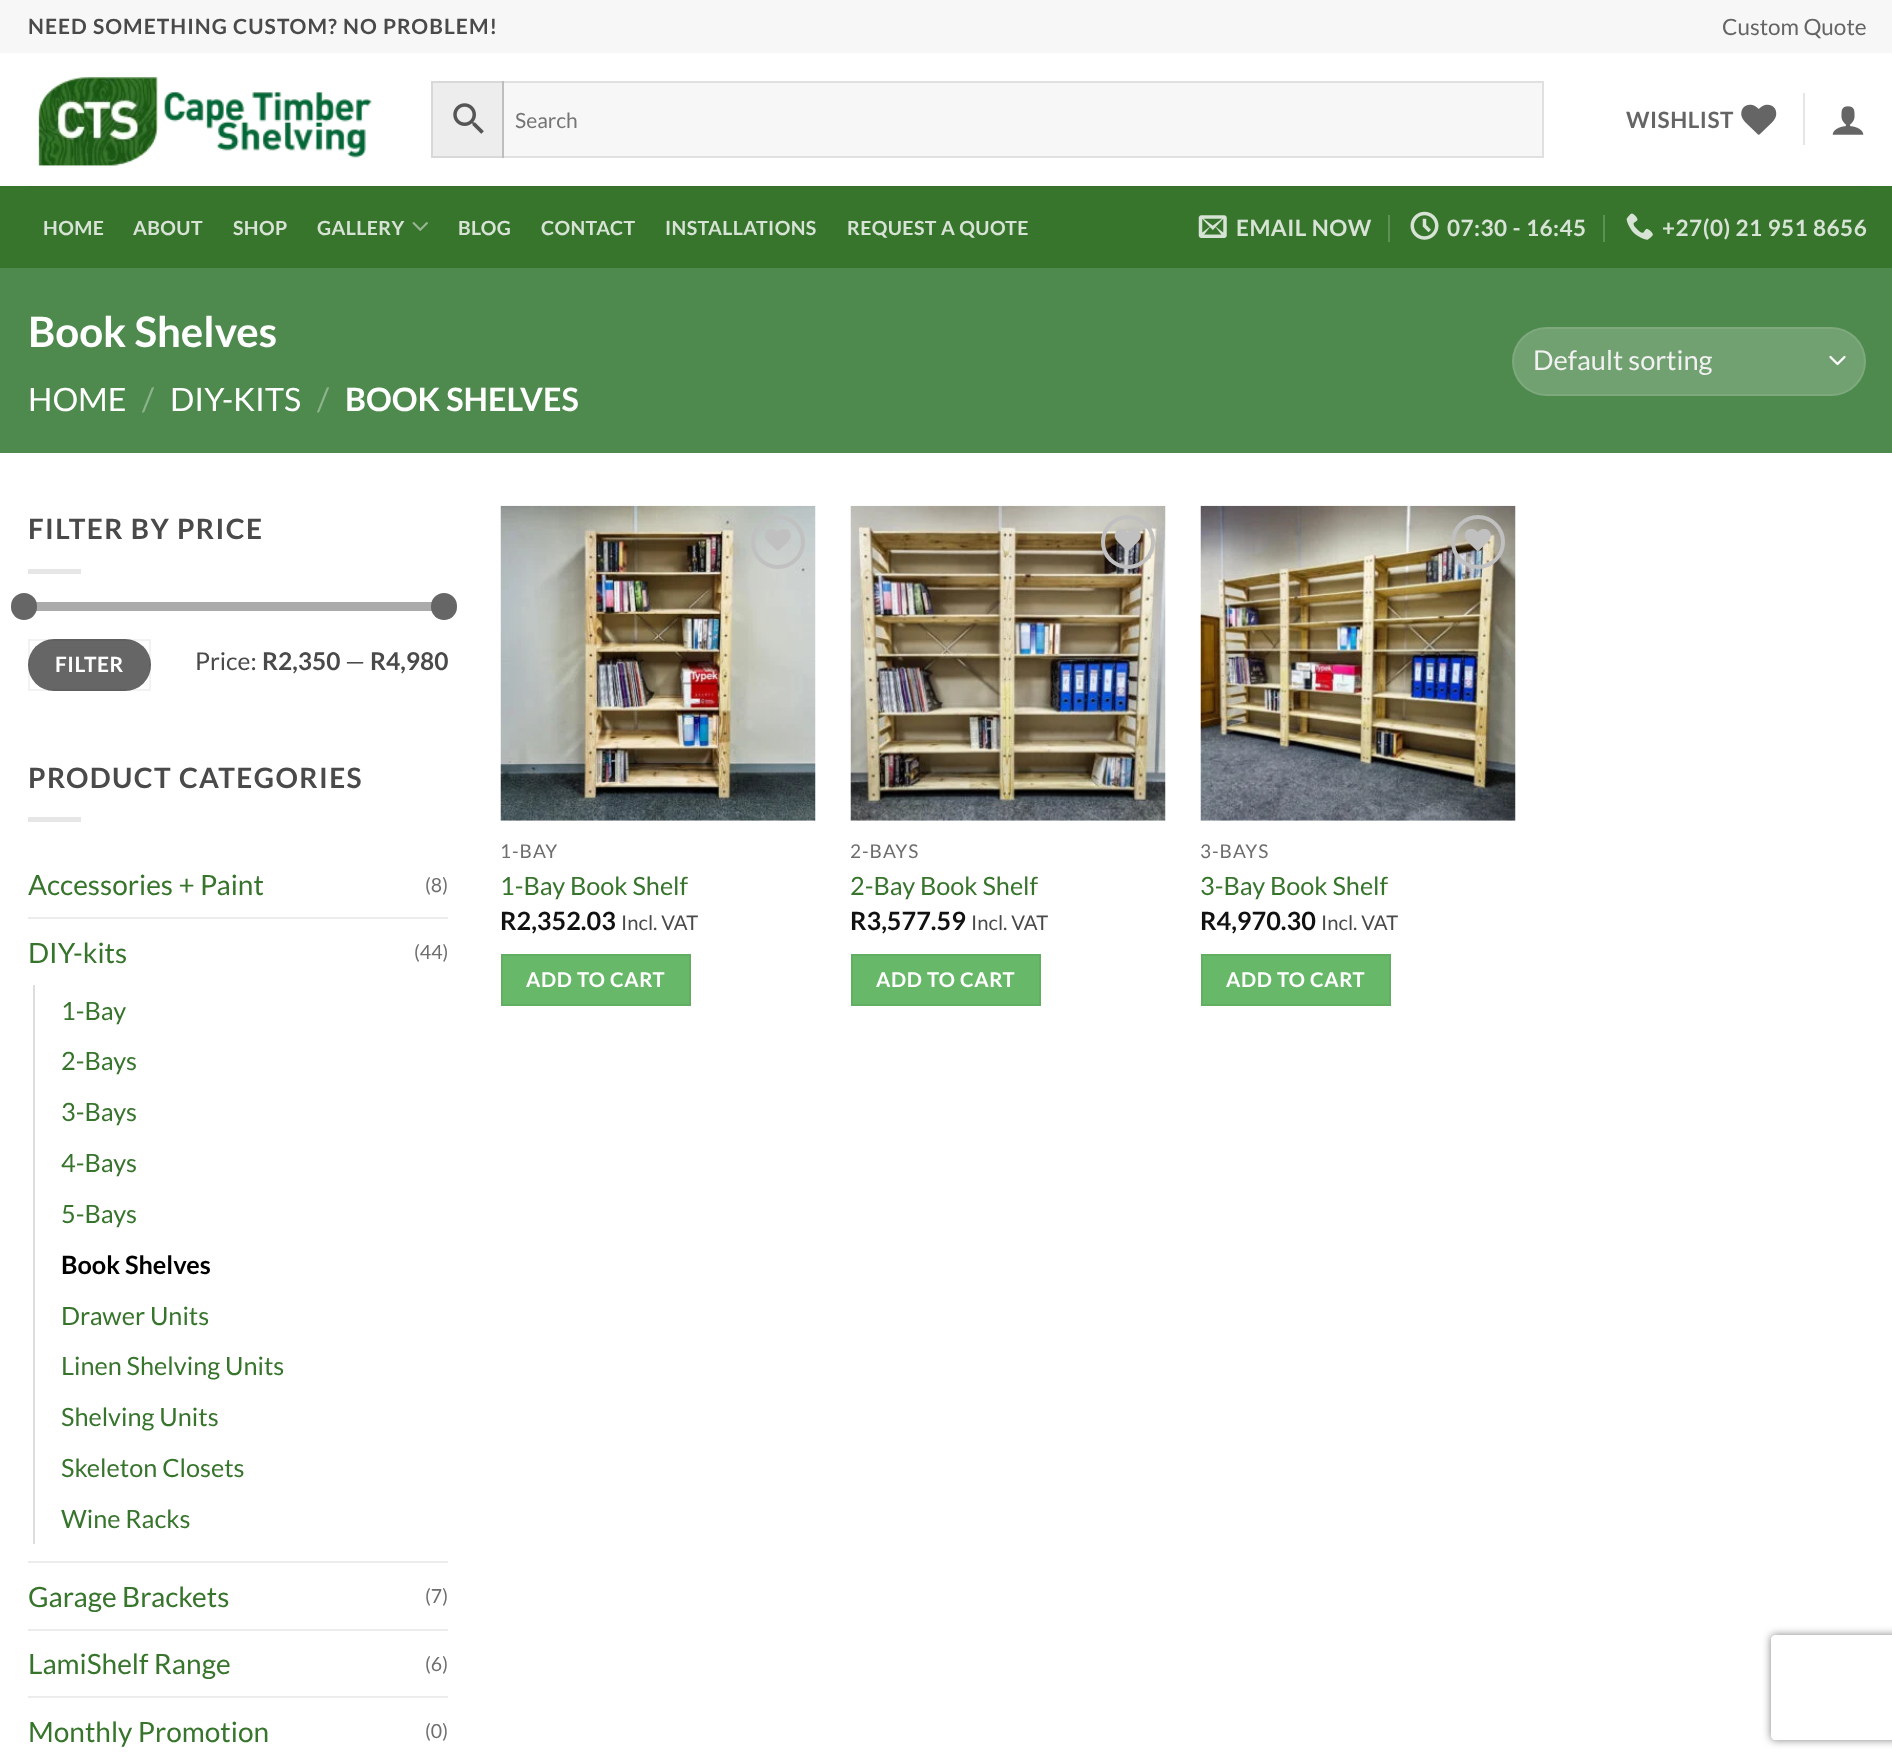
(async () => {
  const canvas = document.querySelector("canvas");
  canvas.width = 1892;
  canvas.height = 1763;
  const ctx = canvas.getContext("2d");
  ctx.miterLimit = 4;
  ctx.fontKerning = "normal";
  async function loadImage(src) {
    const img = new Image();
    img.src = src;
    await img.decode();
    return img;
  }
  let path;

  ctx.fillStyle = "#ffffff";
  ctx.fillRect(0, 0, 1892, 1763);
  ctx.fillStyle = "#f7f7f7";
  ctx.fillRect(0, 0, 1892, 53);
  ctx.drawImage(await loadImage("img/1.png"), 38, 77, 334, 89);
  ctx.fillStyle = "#ededed";
  ctx.beginPath();
  ctx.rect(432, 82, 71, 75);
  ctx.fill();
  ctx.strokeStyle = "#d8d8d8";
  ctx.lineWidth = 2;
  ctx.stroke();
  ctx.drawImage(await loadImage("img/2.png"), 453, 103, 31, 31);
  ctx.fillStyle = "rgba(0, 0, 0, 0.03)";
  ctx.fillRect(502, 81, 1042, 77);
  ctx.strokeStyle = "rgba(0, 0, 0, 0.09)";
  ctx.strokeRect(503, 82, 1040, 75);
  ctx.drawImage(await loadImage("img/3.png"), 1741, 104, 36, 31);
  ctx.fillStyle = "#e6e6e6";
  ctx.fillRect(1803, 93, 2, 52);
  ctx.drawImage(await loadImage("img/4.png"), 1832, 106, 32, 29);
  ctx.fillStyle = "#37742c";
  ctx.fillRect(0, 186, 1892, 82);
  ctx.fillStyle = "#39702f";
  ctx.fillRect(28, 186, 1838, 2);
  ctx.drawImage(await loadImage("img/5.png"), 412, 222, 16, 9);
  ctx.drawImage(await loadImage("img/6.png"), 1198, 215, 29, 23);
  ctx.fillStyle = "#5f9056";
  ctx.fillRect(1388, 215, 2, 27);
  ctx.drawImage(await loadImage("img/7.png"), 1410, 211, 29, 29);
  ctx.fillRect(1603, 215, 2, 27);
  ctx.drawImage(await loadImage("img/8.png"), 1626, 213, 27, 27);
  ctx.fillStyle = "#4e8a4e";
  ctx.fillRect(0, 268, 1892, 185);
  ctx.fillStyle = "#71a171";
  ctx.beginPath();
  ctx.roundRect(1512, 327, 354, 69, 34.5);
  ctx.fill();
  path = new Path2D("M1830.5 357L1837.5 364L1844.5 357");
  ctx.strokeStyle = "#ffffff";
  ctx.lineWidth = 2.3;
  ctx.lineCap = "round";
  ctx.lineJoin = "round";
  ctx.stroke(path);
  ctx.beginPath();
  ctx.roundRect(1513, 328, 352, 67, 33.5);
  ctx.strokeStyle = "rgba(255, 255, 255, 0.09)";
  ctx.lineWidth = 2;
  ctx.lineJoin = "miter";
  ctx.stroke();
  for (const [x, y, w, h, color] of [
    [28, 569, 53, 5, "#e6e6e6"],
    [36, 602, 396, 9, "#f1f1f1"],
    [36, 602, 396, 9, "rgba(102, 102, 102, 0.5)"],
  ]) {
    ctx.fillStyle = color;
    ctx.fillRect(x, y, w, h);
  }
  ctx.fillStyle = "#666666";
  ctx.beginPath();
  ctx.roundRect(11, 593, 26, 27, 13);
  ctx.fill();
  ctx.beginPath();
  ctx.roundRect(431, 593, 26, 27, 13);
  ctx.fill();
  ctx.beginPath();
  ctx.roundRect(28, 639, 123, 52, 26);
  ctx.fill();
  ctx.strokeStyle = "rgba(0, 0, 0, 0.05)";
  ctx.strokeRect(29, 640, 121, 50);
  for (const [x, y, w, h, color] of [
    [28, 817, 53, 5, "#e6e6e6"],
    [28, 917, 420, 2, "#ececec"],
    [33, 985, 2, 559, "#dddddd"],
    [28, 1561, 420, 2, "#ececec"],
    [28, 1629, 420, 2, "#ececec"],
    [28, 1696, 420, 2, "#ececec"],
  ]) {
    ctx.fillStyle = color;
    ctx.fillRect(x, y, w, h);
  }
  ctx.drawImage(await loadImage("img/9.png"), 500, 505, 316, 316);
  ctx.beginPath();
  ctx.arc(778, 542, 25, 0, Math.PI * 2);
  ctx.strokeStyle = "#c0c0c0";
  ctx.lineWidth = 4;
  ctx.stroke();
  ctx.drawImage(await loadImage("img/10.png"), 765, 529, 26, 22);
  ctx.fillStyle = "#67b868";
  ctx.beginPath();
  ctx.rect(502, 955, 188, 50);
  ctx.fill();
  ctx.strokeStyle = "#62af63";
  ctx.lineWidth = 2;
  ctx.stroke();
  ctx.drawImage(await loadImage("img/11.png"), 850, 505, 316, 316);
  ctx.beginPath();
  ctx.arc(1128, 542, 25, 0, Math.PI * 2);
  ctx.strokeStyle = "#c0c0c0";
  ctx.lineWidth = 4;
  ctx.stroke();
  ctx.drawImage(await loadImage("img/12.png"), 1114, 529, 27, 22);
  ctx.beginPath();
  ctx.rect(852, 955, 188, 50);
  ctx.fill();
  ctx.strokeStyle = "#62af63";
  ctx.lineWidth = 2;
  ctx.stroke();
  ctx.drawImage(await loadImage("img/13.png"), 1200, 505, 316, 316);
  ctx.beginPath();
  ctx.arc(1478, 542, 25, 0, Math.PI * 2);
  ctx.strokeStyle = "#c0c0c0";
  ctx.lineWidth = 4;
  ctx.stroke();
  ctx.drawImage(await loadImage("img/14.png"), 1464, 529, 27, 23);
  ctx.beginPath();
  ctx.rect(1202, 955, 188, 50);
  ctx.fill();
  ctx.strokeStyle = "#62af63";
  ctx.lineWidth = 2;
  ctx.stroke();
  ctx.save();
  path = new Path2D("M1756 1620H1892V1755H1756ZM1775 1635H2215C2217 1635 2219 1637 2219 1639V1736C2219 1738 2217 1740 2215 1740H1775C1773 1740 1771 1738 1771 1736V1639C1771 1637 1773 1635 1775 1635Z");
  ctx.clip(path, "evenodd");
  ctx.fillStyle = "#808080";
  ctx.filter = "blur(4.5px)";
  ctx.beginPath();
  ctx.roundRect(1771, 1635, 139, 105, 4);
  ctx.fill();
  ctx.filter = "none";
  ctx.restore();
  ctx.letterSpacing = "1.05px";
  ctx.font = "bold 21px Lato";
  ctx.fillStyle = "#4a4a4a";
  ctx.fillText("NEED SOMETHING CUSTOM? NO PROBLEM!", 28, 34);
  ctx.letterSpacing = "0px";
  ctx.font = "22.5px Lato";
  ctx.fillStyle = "#656565";
  ctx.fillText("Custom Quote", 1722, 35);
  ctx.font = "21px Lato";
  ctx.fillStyle = "#757575";
  ctx.fillText("Search", 515, 128);
  ctx.letterSpacing = "0.5px";
  ctx.font = "bold 22.5px Lato";
  ctx.fillStyle = "#656565";
  ctx.fillText("WISHLIST", 1626, 128);
  ctx.letterSpacing = "0.4px";
  ctx.font = "bold 19.5px Lato";
  ctx.fillStyle = "#d7e3d5";
  for (const [text, x, y] of [
    ["HOME", 43, 235],
    ["ABOUT", 133, 235],
    ["SHOP", 233, 235],
    ["GALLERY", 317, 235],
    ["BLOG", 458, 235],
    ["CONTACT", 541, 235],
    ["INSTALLATIONS", 665, 235],
    ["REQUEST A QUOTE", 847, 235],
  ]) {
    ctx.fillText(text, x, y);
  }
  ctx.letterSpacing = "0.5px";
  ctx.font = "bold 22.5px Lato";
  for (const [text, x, y] of [
    ["EMAIL NOW", 1236, 236],
    ["07:30 - 16:45", 1447, 236],
    ["+27(0) 21 951 8656", 1662, 236],
  ]) {
    ctx.fillText(text, x, y);
  }
  ctx.letterSpacing = "0px";
  ctx.font = "bold 42px Lato";
  ctx.fillStyle = "#ffffff";
  ctx.fillText("Book Shelves", 28, 347);
  ctx.font = "32.25px Lato";
  ctx.fillText("HOME", 28, 411);
  ctx.fillStyle = "#8cb38c";
  ctx.fillText("/", 142, 411);
  ctx.fillStyle = "#ffffff";
  ctx.fillText("DIY-KITS", 170, 411);
  ctx.fillStyle = "#8cb38c";
  ctx.fillText("/", 317, 411);
  ctx.font = "bold 32.25px Lato";
  ctx.fillStyle = "#ffffff";
  ctx.fillText("BOOK SHELVES", 345, 411);
  ctx.font = "27.25px Lato";
  ctx.fillStyle = "#f1f1f1";
  ctx.fillText("Default sorting", 1533, 370);
  ctx.letterSpacing = "1.4px";
  ctx.font = "bold 28px Lato";
  ctx.fillStyle = "#4a4a4a";
  ctx.fillText("FILTER BY PRICE", 28, 539);
  ctx.letterSpacing = "0.5px";
  ctx.font = "bold 21px Lato";
  ctx.fillStyle = "#ffffff";
  ctx.fillText("FILTER", 55, 672);
  ctx.letterSpacing = "0px";
  ctx.font = "24.5px Lato";
  ctx.fillStyle = "#4a4a4a";
  ctx.fillText("Price:", 195, 670);
  ctx.font = "bold 24.5px Lato";
  ctx.fillText("R2,350", 262, 670);
  ctx.font = "24.5px Lato";
  ctx.fillText("—", 345, 670);
  ctx.font = "bold 24.5px Lato";
  ctx.fillText("R4,980", 370, 670);
  ctx.letterSpacing = "1.4px";
  ctx.font = "bold 28px Lato";
  ctx.fillText("PRODUCT CATEGORIES", 28, 788);
  ctx.letterSpacing = "0px";
  ctx.font = "28px Lato";
  ctx.fillStyle = "#37742c";
  ctx.fillText("Accessories + Paint", 28, 895);
  ctx.font = "19.5px Lato";
  ctx.fillStyle = "#6e6e6e";
  ctx.fillText("(8)", 425, 892);
  ctx.font = "28px Lato";
  ctx.fillStyle = "#37742c";
  ctx.fillText("DIY-kits", 28, 963);
  ctx.font = "19.5px Lato";
  ctx.fillStyle = "#6e6e6e";
  ctx.fillText("(44)", 414, 959);
  ctx.font = "25.25px Lato";
  ctx.fillStyle = "#37742c";
  for (const [text, x, y] of [
    ["1-Bay", 61, 1020],
    ["2-Bays", 61, 1070],
    ["3-Bays", 61, 1121],
    ["4-Bays", 61, 1172],
    ["5-Bays", 61, 1223],
  ]) {
    ctx.fillText(text, x, y);
  }
  ctx.font = "bold 25.25px Lato";
  ctx.fillStyle = "#000000";
  ctx.fillText("Book Shelves", 61, 1274);
  ctx.font = "25.25px Lato";
  ctx.fillStyle = "#37742c";
  for (const [text, x, y] of [
    ["Drawer Units", 61, 1325],
    ["Linen Shelving Units", 61, 1375],
    ["Shelving Units", 61, 1426],
    ["Skeleton Closets", 61, 1477],
    ["Wine Racks", 61, 1528],
  ]) {
    ctx.fillText(text, x, y);
  }
  ctx.font = "28px Lato";
  ctx.fillText("Garage Brackets", 28, 1607);
  ctx.font = "19.5px Lato";
  ctx.fillStyle = "#6e6e6e";
  ctx.fillText("(7)", 425, 1603);
  ctx.font = "28px Lato";
  ctx.fillStyle = "#37742c";
  ctx.fillText("LamiShelf Range", 28, 1674);
  ctx.font = "19.5px Lato";
  ctx.fillStyle = "#6e6e6e";
  ctx.fillText("(6)", 425, 1671);
  ctx.font = "28px Lato";
  ctx.fillStyle = "#37742c";
  ctx.fillText("Monthly Promotion", 28, 1742);
  ctx.font = "19.5px Lato";
  ctx.fillStyle = "#6e6e6e";
  ctx.fillText("(0)", 425, 1738);
  ctx.letterSpacing = "1px";
  ctx.font = "19px Lato";
  ctx.fillText("1-BAY", 500, 858);
  ctx.letterSpacing = "0px";
  ctx.font = "25.25px Lato";
  ctx.fillStyle = "#37742c";
  ctx.fillText("1-Bay Book Shelf", 500, 895);
  ctx.font = "bold 25.25px Lato";
  ctx.fillStyle = "#111111";
  ctx.fillText("R2,352.03", 500, 930);
  ctx.font = "20.25px Lato";
  ctx.fillStyle = "#4a4a4a";
  ctx.fillText("Incl. VAT", 621, 930);
  ctx.letterSpacing = "0.6px";
  ctx.font = "bold 20.25px Lato";
  ctx.fillStyle = "#ffffff";
  ctx.fillText("ADD TO CART", 526, 987);
  ctx.letterSpacing = "1px";
  ctx.font = "19px Lato";
  ctx.fillStyle = "#6e6e6e";
  ctx.fillText("2-BAYS", 850, 858);
  ctx.letterSpacing = "0px";
  ctx.font = "25.25px Lato";
  ctx.fillStyle = "#37742c";
  ctx.fillText("2-Bay Book Shelf", 850, 895);
  ctx.font = "bold 25.25px Lato";
  ctx.fillStyle = "#111111";
  ctx.fillText("R3,577.59", 850, 930);
  ctx.font = "20.25px Lato";
  ctx.fillStyle = "#4a4a4a";
  ctx.fillText("Incl. VAT", 971, 930);
  ctx.letterSpacing = "0.6px";
  ctx.font = "bold 20.25px Lato";
  ctx.fillStyle = "#ffffff";
  ctx.fillText("ADD TO CART", 876, 987);
  ctx.letterSpacing = "1px";
  ctx.font = "19px Lato";
  ctx.fillStyle = "#6e6e6e";
  ctx.fillText("3-BAYS", 1200, 858);
  ctx.letterSpacing = "0px";
  ctx.font = "25.25px Lato";
  ctx.fillStyle = "#37742c";
  ctx.fillText("3-Bay Book Shelf", 1200, 895);
  ctx.font = "bold 25.25px Lato";
  ctx.fillStyle = "#111111";
  ctx.fillText("R4,970.30", 1200, 930);
  ctx.font = "20.25px Lato";
  ctx.fillStyle = "#4a4a4a";
  ctx.fillText("Incl. VAT", 1321, 930);
  ctx.letterSpacing = "0.6px";
  ctx.font = "bold 20.25px Lato";
  ctx.fillStyle = "#ffffff";
  ctx.fillText("ADD TO CART", 1226, 987);
})();
